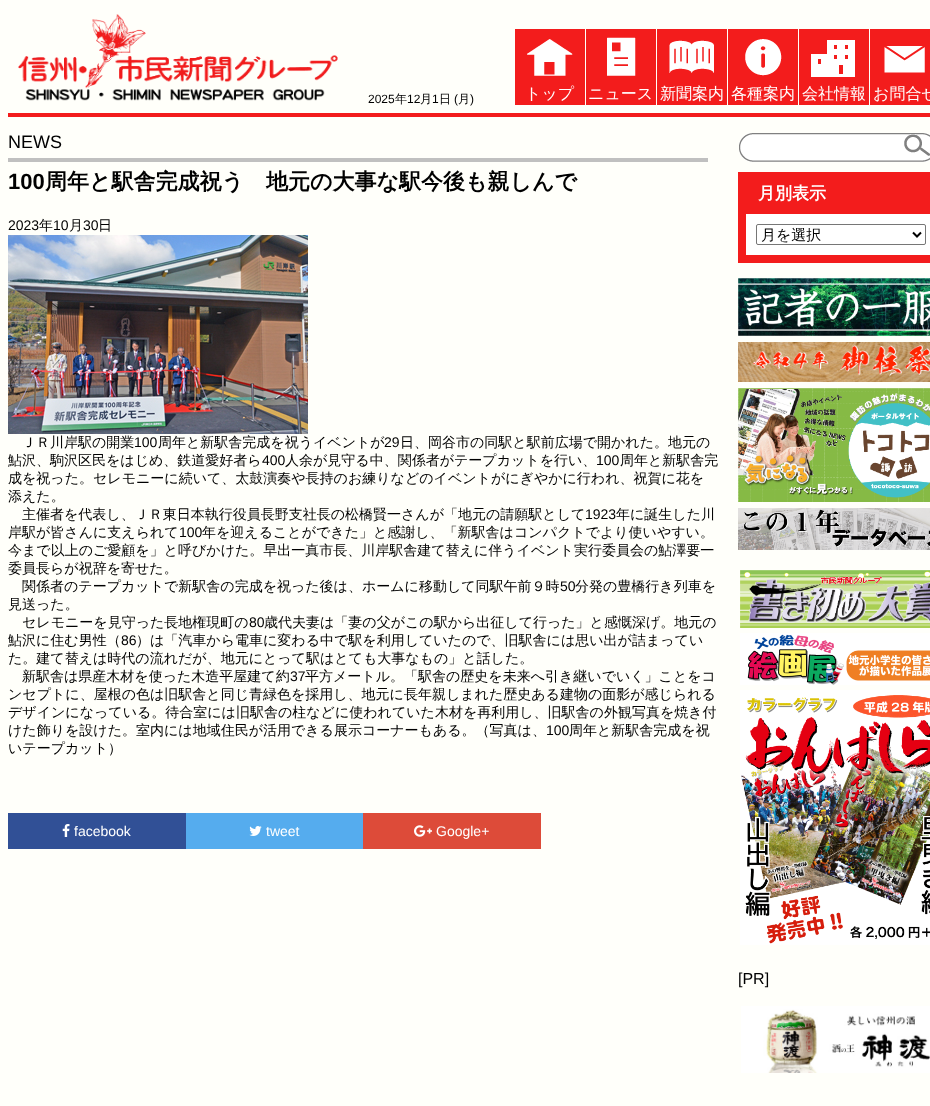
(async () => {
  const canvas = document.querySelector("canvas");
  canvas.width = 930;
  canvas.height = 1106;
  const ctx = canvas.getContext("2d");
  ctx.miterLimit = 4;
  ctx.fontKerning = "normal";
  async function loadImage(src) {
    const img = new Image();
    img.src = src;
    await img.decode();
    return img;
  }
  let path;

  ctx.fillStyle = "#fffffa";
  ctx.fillRect(0, 0, 930, 1106);
  ctx.fillStyle = "#f31c1c";
  ctx.fillRect(8, 113, 922, 4);
  ctx.drawImage(await loadImage("img/1.png"), 18, 14, 320, 87);
  ctx.fillRect(515, 29, 70, 76);
  ctx.drawImage(await loadImage("img/2.png"), 527, 39, 46, 37);
  ctx.fillRect(586, 29, 70, 76);
  ctx.drawImage(await loadImage("img/3.png"), 607, 37, 29, 39);
  ctx.fillRect(657, 29, 70, 76);
  ctx.drawImage(await loadImage("img/4.png"), 669, 40, 45, 33);
  ctx.fillRect(728, 29, 70, 76);
  ctx.drawImage(await loadImage("img/5.png"), 745, 39, 37, 37);
  ctx.fillRect(799, 29, 70, 76);
  ctx.drawImage(await loadImage("img/6.png"), 811, 40, 44, 37);
  ctx.fillRect(870, 29, 60, 76);
  ctx.drawImage(await loadImage("img/7.png"), 884, 46, 41, 27);
  ctx.fillStyle = "#c0c0c0";
  ctx.fillRect(8, 158, 700, 4);
  ctx.drawImage(await loadImage("img/8.png"), 8, 235, 300, 199);
  ctx.fillStyle = "#315096";
  ctx.fillRect(8, 813, 178, 36);
  ctx.drawImage(await loadImage("img/9.png"), 62, 824, 8, 13);
  ctx.fillStyle = "#55acee";
  ctx.fillRect(186, 813, 177, 36);
  ctx.drawImage(await loadImage("img/10.png"), 249, 826, 13, 10);
  ctx.fillStyle = "#dd4b39";
  ctx.fillRect(363, 813, 178, 36);
  ctx.drawImage(await loadImage("img/11.png"), 414, 825, 18, 12);
  ctx.drawImage(await loadImage("img/12.png"), 739, 133, 191, 29);
  ctx.drawImage(await loadImage("img/13.png"), 904, 134, 26, 22);
  ctx.fillStyle = "#f31c1c";
  ctx.fillRect(738, 172, 192, 91);
  ctx.fillStyle = "#ffffff";
  ctx.fillRect(746, 214, 184, 41);
  ctx.beginPath();
  ctx.roundRect(756.5, 224.5, 169, 20, 1.5);
  ctx.strokeStyle = "#767676";
  ctx.stroke();
  path = new Path2D("M913 232.5L917 236.5L921 232.5");
  ctx.strokeStyle = "#000000";
  ctx.lineWidth = 2;
  ctx.stroke(path);
  ctx.drawImage(await loadImage("img/14.png"), 738, 278, 192, 58);
  ctx.drawImage(await loadImage("img/15.png"), 738, 342, 192, 40);
  ctx.drawImage(await loadImage("img/16.png"), 738, 388, 192, 114);
  ctx.drawImage(await loadImage("img/17.png"), 738, 508, 192, 42);
  ctx.drawImage(await loadImage("img/18.png"), 740, 570, 190, 58);
  ctx.drawImage(await loadImage("img/19.png"), 740, 633, 190, 52);
  ctx.drawImage(await loadImage("img/20.png"), 740, 690, 190, 255);
  ctx.drawImage(await loadImage("img/21.png"), 741, 1006, 189, 67);
  ctx.font = "12px Liberation Sans";
  ctx.fillStyle = "#000000";
  ctx.fillText("2025", 368, 103);
  ctx.font = "500 12px WenQuanYi Zen Hei";
  ctx.fillText("年", 395, 103);
  ctx.font = "12px Liberation Sans";
  ctx.fillText("12", 407, 103);
  ctx.font = "500 12px WenQuanYi Zen Hei";
  ctx.fillText("月", 420, 103);
  ctx.font = "12px Liberation Sans";
  ctx.fillText("1", 432, 103);
  ctx.font = "500 12px WenQuanYi Zen Hei";
  ctx.fillText("日", 439, 103);
  ctx.font = "12px Liberation Sans";
  ctx.fillText("(", 454, 103);
  ctx.font = "500 12px WenQuanYi Zen Hei";
  ctx.fillText("月", 458, 103);
  ctx.font = "12px Liberation Sans";
  ctx.fillText(")", 470, 103);
  ctx.font = "500 16px WenQuanYi Zen Hei";
  ctx.fillStyle = "#ffffff";
  for (const [text, x, y] of [
    ["トップ", 525, 99],
    ["ニュース", 588, 99],
    ["新聞案内", 660, 99],
    ["各種案内", 731, 99],
    ["会社情報", 802, 99],
    ["お問合せ", 873, 99],
  ]) {
    ctx.fillText(text, x, y);
  }
  ctx.font = "18px Liberation Sans";
  ctx.fillStyle = "#000000";
  ctx.fillText("NEWS", 8, 148);
  ctx.font = "bold 22px Liberation Sans";
  ctx.fillText("100", 8, 189);
  ctx.font = "bold 22px WenQuanYi Zen Hei";
  ctx.fillText("周年と駅舎完成祝う　地元の大事な駅今後も親しんで", 45, 189);
  ctx.font = "14px Liberation Sans";
  ctx.fillText("2023", 8, 230);
  ctx.font = "500 14px WenQuanYi Zen Hei";
  ctx.fillText("年", 39, 230);
  ctx.font = "14px Liberation Sans";
  ctx.fillText("10", 53, 230);
  ctx.font = "500 14px WenQuanYi Zen Hei";
  ctx.fillText("月", 69, 230);
  ctx.font = "14px Liberation Sans";
  ctx.fillText("30", 83, 230);
  ctx.font = "500 14px WenQuanYi Zen Hei";
  ctx.fillText("日", 98, 230);
  ctx.fillText("ＪＲ川岸駅の開業", 22, 447);
  ctx.font = "14px Liberation Sans";
  ctx.fillText("100", 134, 447);
  ctx.font = "500 14px WenQuanYi Zen Hei";
  ctx.fillText("周年と新駅舎完成を祝うイベントが", 158, 447);
  ctx.font = "14px Liberation Sans";
  ctx.fillText("29", 384, 447);
  ctx.font = "500 14px WenQuanYi Zen Hei";
  ctx.fillText("日、岡谷市の同駅と駅前広場で開かれた。地元の", 400, 447);
  ctx.fillText("鮎沢、駒沢区民をはじめ、鉄道愛好者ら", 8, 465);
  ctx.font = "14px Liberation Sans";
  ctx.fillText("400", 262, 465);
  ctx.font = "500 14px WenQuanYi Zen Hei";
  ctx.fillText("人余が見守る中、関係者がテープカットを行い、", 285, 465);
  ctx.font = "14px Liberation Sans";
  ctx.fillText("100", 596, 465);
  ctx.font = "500 14px WenQuanYi Zen Hei";
  for (const [text, x, y] of [
    ["周年と新駅舎完", 620, 465],
    ["成を祝った。セレモニーに続いて、太鼓演奏や長持のお練りなどのイベントがにぎやかに行われ、祝賀に花を", 8, 483],
    ["添えた。", 8, 501],
    ["主催者を代表し、ＪＲ東日本執行役員長野支社長の松橋賢一さんが「地元の請願駅として", 22, 519],
  ]) {
    ctx.fillText(text, x, y);
  }
  ctx.font = "14px Liberation Sans";
  ctx.fillText("1923", 585, 519);
  ctx.font = "500 14px WenQuanYi Zen Hei";
  ctx.fillText("年に誕生した川", 616, 519);
  ctx.fillText("岸駅が皆さんに支えられて", 8, 537);
  ctx.font = "14px Liberation Sans";
  ctx.fillText("100", 179, 537);
  ctx.font = "500 14px WenQuanYi Zen Hei";
  for (const [text, x, y] of [
    ["年を迎えることができた」と感謝し、「新駅舎はコンパクトでより使いやすい。", 202, 537],
    ["今まで以上のご愛顧を」と呼びかけた。早出一真市長、川岸駅舎建て替えに伴うイベント実行委員会の鮎澤要一", 8, 555],
    ["委員長らが祝辞を寄せた。", 8, 573],
    ["関係者のテープカットで新駅舎の完成を祝った後は、ホームに移動して同駅午前９時", 22, 591],
  ]) {
    ctx.fillText(text, x, y);
  }
  ctx.font = "14px Liberation Sans";
  ctx.fillText("50", 560, 591);
  ctx.font = "500 14px WenQuanYi Zen Hei";
  for (const [text, x, y] of [
    ["分発の豊橋行き列車を", 575, 591],
    ["見送った。", 8, 609],
    ["セレモニーを見守った長地権現町の", 22, 627],
  ]) {
    ctx.fillText(text, x, y);
  }
  ctx.font = "14px Liberation Sans";
  ctx.fillText("80", 249, 627);
  ctx.font = "500 14px WenQuanYi Zen Hei";
  ctx.fillText("歳代夫妻は「妻の父がこの駅から出征して行った」と感慨深げ。地元の", 264, 627);
  ctx.fillText("鮎沢に住む男性（", 8, 645);
  ctx.font = "14px Liberation Sans";
  ctx.fillText("86", 121, 645);
  ctx.font = "500 14px WenQuanYi Zen Hei";
  for (const [text, x, y] of [
    ["）は「汽車から電車に変わる中で駅を利用していたので、旧駅舎には思い出が詰まってい", 136, 645],
    ["た。建て替えは時代の流れだが、地元にとって駅はとても大事なもの」と話した。", 8, 663],
    ["新駅舎は県産木材を使った木造平屋建て約", 22, 681],
  ]) {
    ctx.fillText(text, x, y);
  }
  ctx.font = "14px Liberation Sans";
  ctx.fillText("37", 290, 681);
  ctx.font = "500 14px WenQuanYi Zen Hei";
  for (const [text, x, y] of [
    ["平方メートル。「駅舎の歴史を未来へ引き継いでいく」ことをコ", 305, 681],
    ["ンセプトに、屋根の色は旧駅舎と同じ青緑色を採用し、地元に長年親しまれた歴史ある建物の面影が感じられる", 8, 699],
    ["デザインになっている。待合室には旧駅舎の柱などに使われていた木材を再利用し、旧駅舎の外観写真を焼き付", 8, 717],
    ["けた飾りを設けた。室内には地域住民が活用できる展示コーナーもある。（写真は、", 8, 735],
  ]) {
    ctx.fillText(text, x, y);
  }
  ctx.font = "14px Liberation Sans";
  ctx.fillText("100", 546, 735);
  ctx.font = "500 14px WenQuanYi Zen Hei";
  ctx.fillText("周年と新駅舎完成を祝", 569, 735);
  ctx.fillText("いテープカット）", 8, 753);
  ctx.font = "14px Liberation Sans";
  ctx.fillStyle = "#ffffff";
  for (const [text, x, y] of [
    ["facebook", 74, 836],
    ["tweet", 266, 836],
    ["Google+", 436, 836],
  ]) {
    ctx.fillText(text, x, y);
  }
  ctx.font = "bold 17px WenQuanYi Zen Hei";
  ctx.fillText("月別表示", 758, 199);
  ctx.font = "500 15px WenQuanYi Zen Hei";
  ctx.fillStyle = "#000000";
  ctx.fillText("月を選択", 761, 240);
  ctx.font = "16px Liberation Sans";
  ctx.fillText("[PR]", 738, 984);
})();
